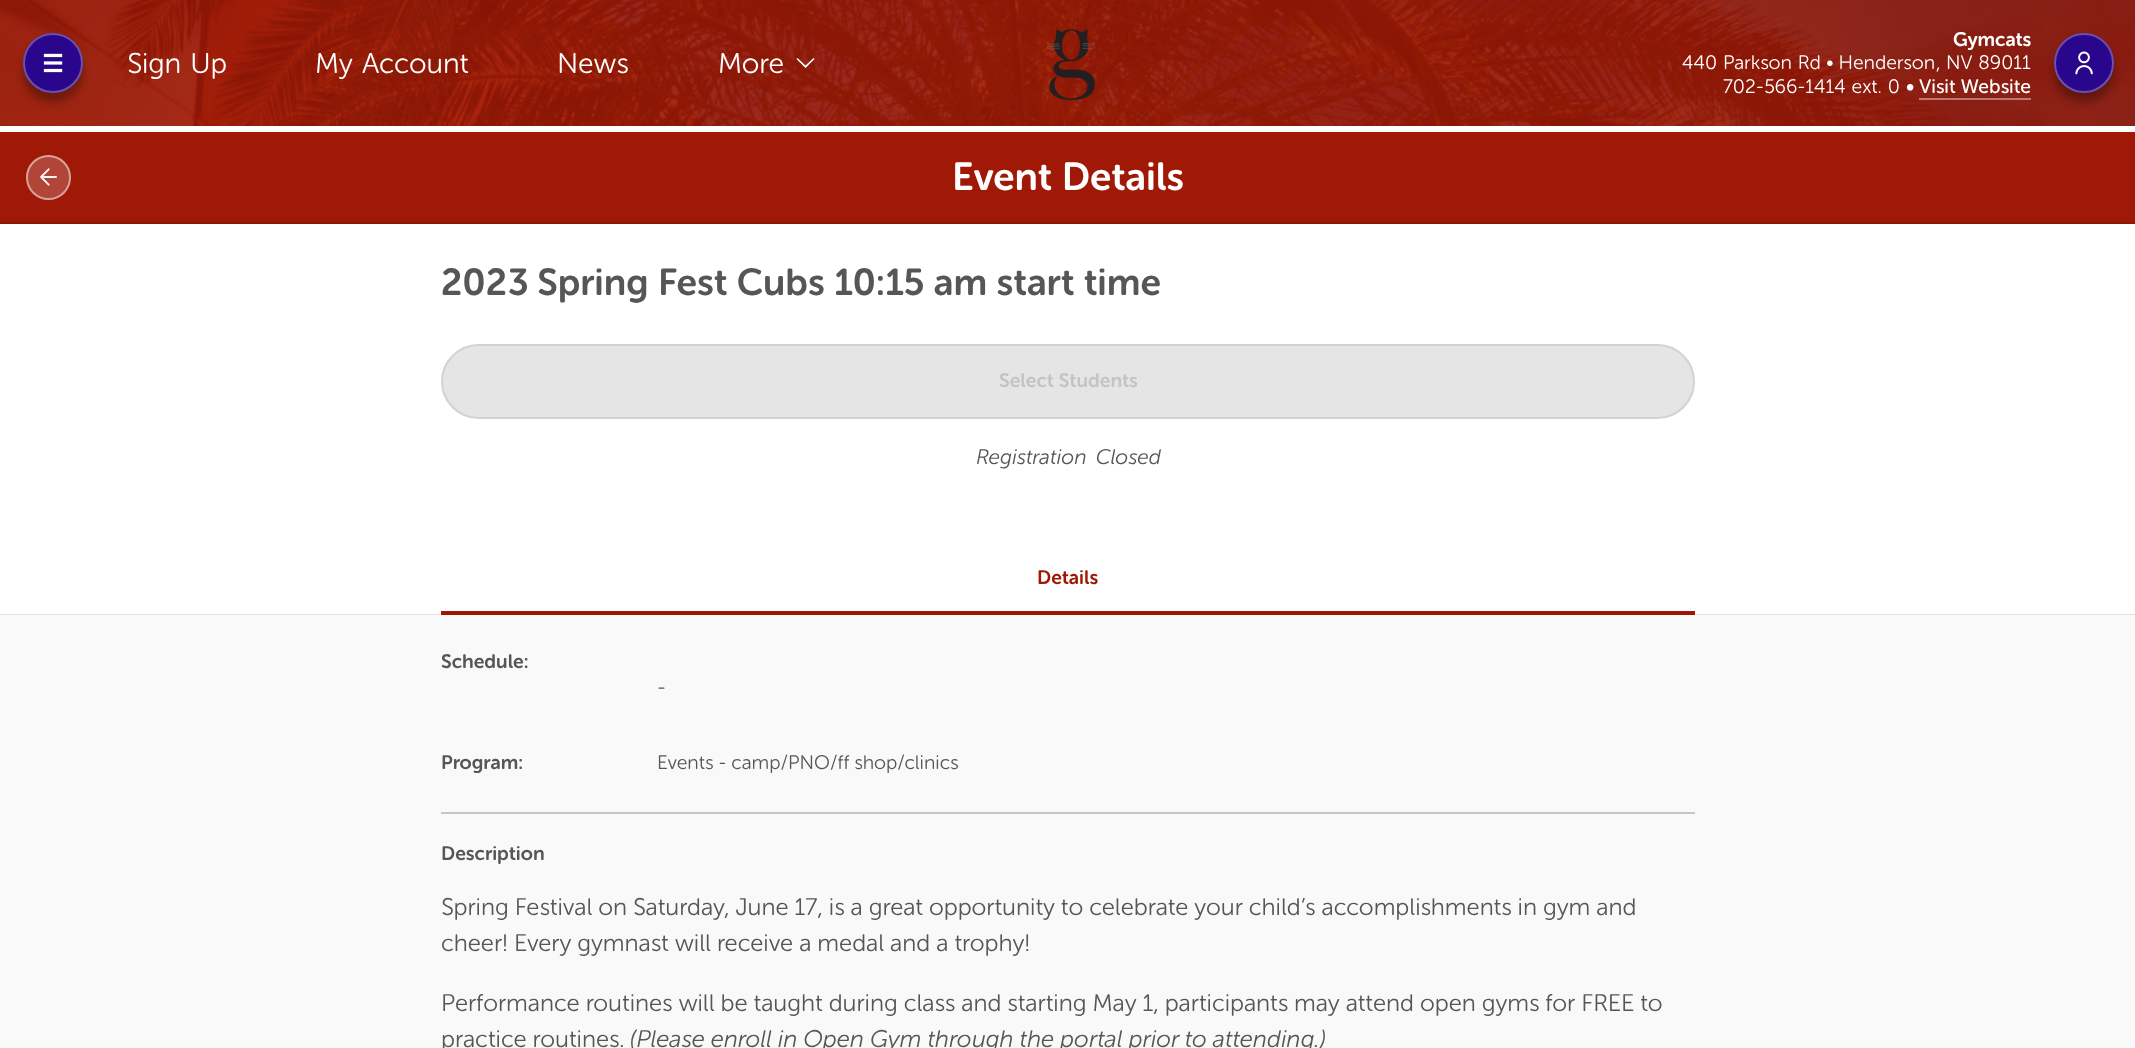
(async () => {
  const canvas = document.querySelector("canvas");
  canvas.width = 2135;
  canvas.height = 1048;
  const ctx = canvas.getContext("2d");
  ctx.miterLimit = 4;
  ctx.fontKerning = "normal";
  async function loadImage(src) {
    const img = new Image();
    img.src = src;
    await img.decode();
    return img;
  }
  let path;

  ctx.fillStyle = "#a01806";
  ctx.fillRect(0, 0, 2135, 1048);
  ctx.drawImage(await loadImage("img/1.png"), 0, 0, 2135, 126);
  ctx.fillStyle = "rgba(0, 0, 0, 0.3)";
  ctx.filter = "blur(4px)";
  ctx.beginPath();
  ctx.roundRect(23, 42, 60, 60, 30);
  ctx.fill();
  ctx.filter = "none";
  ctx.fillStyle = "#2a068d";
  ctx.beginPath();
  ctx.arc(53, 63, 30, 0, Math.PI * 2);
  ctx.fill();
  ctx.beginPath();
  ctx.arc(53, 63, 29, 0, Math.PI * 2);
  ctx.strokeStyle = "rgba(255, 255, 255, 0.3)";
  ctx.lineWidth = 2;
  ctx.stroke();
  ctx.drawImage(await loadImage("img/2.png"), 43, 53, 20, 20);
  ctx.fillStyle = "#ffffff";
  path = new Path2D("M805.5 68L814.5 59L813.5 58L805.5 65.5L797.5 58L796.5 59Z");
  ctx.fill(path);
  ctx.drawImage(await loadImage("img/3.png"), 1046, 28, 50, 73);
  ctx.fillStyle = "rgba(255, 255, 255, 0.4)";
  ctx.fillRect(1919, 98, 112, 2);
  ctx.fillStyle = "rgba(0, 0, 0, 0.3)";
  ctx.filter = "blur(4px)";
  ctx.beginPath();
  ctx.roundRect(2054, 42, 60, 60, 30);
  ctx.fill();
  ctx.filter = "none";
  ctx.fillStyle = "#2a068d";
  ctx.beginPath();
  ctx.arc(2084, 63, 30, 0, Math.PI * 2);
  ctx.fill();
  ctx.beginPath();
  ctx.arc(2084, 63, 29, 0, Math.PI * 2);
  ctx.stroke();
  ctx.drawImage(await loadImage("img/4.png"), 2075, 51, 18, 24);
  ctx.fillStyle = "#ffffff";
  ctx.fillRect(0, 126, 2135, 6);
  ctx.fillStyle = "#8e1505";
  ctx.fillRect(0, 222, 2135, 2);
  ctx.fillStyle = "#b14538";
  ctx.beginPath();
  ctx.arc(48.5, 177.5, 22.5, 0, Math.PI * 2);
  ctx.fill();
  ctx.drawImage(await loadImage("img/5.png"), 40, 168, 17, 18);
  ctx.beginPath();
  ctx.arc(48.5, 177.5, 21.5, 0, Math.PI * 2);
  ctx.strokeStyle = "rgba(255, 255, 255, 0.5)";
  ctx.stroke();
  ctx.fillStyle = "#ffffff";
  ctx.fillRect(0, 224, 2135, 390);
  ctx.fillStyle = "#e2e2e2";
  ctx.fillRect(0, 614, 2135, 1);
  ctx.fillStyle = "#e5e5e5";
  ctx.beginPath();
  ctx.roundRect(442, 345, 1252, 73, 36.5);
  ctx.fill();
  ctx.strokeStyle = "#d2d2d2";
  ctx.stroke();
  for (const [x, y, w, h, color] of [
    [441, 611, 1254, 4, "#9e1706"],
    [0, 615, 2135, 433, "#f9f9f9"],
    [441, 812, 1254, 2, "#c5c5c5"],
  ]) {
    ctx.fillStyle = color;
    ctx.fillRect(x, y, w, h);
  }
  ctx.wordSpacing = "2px";
  ctx.font = "300 28.5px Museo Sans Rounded";
  ctx.fillStyle = "#ffffff";
  ctx.fillText("Sign Up", 127, 73);
  ctx.fillText("My Account", 315, 73);
  ctx.wordSpacing = "0px";
  ctx.fillText("News", 557, 73);
  ctx.fillText("More", 718, 73);
  ctx.font = "600 19.5px Museo Sans Rounded";
  ctx.fillText("Gymcats", 1953, 46);
  ctx.wordSpacing = "1px";
  ctx.font = "300 19.5px Museo Sans Rounded";
  ctx.fillText("440 Parkson Rd", 1682, 69);
  ctx.wordSpacing = "0px";
  ctx.fillText("• Henderson", 1826, 69);
  ctx.fillText(",", 1936, 69);
  ctx.wordSpacing = "1px";
  ctx.fillText("NV 89011", 1946, 69);
  ctx.fillText("702-566-1414 ext. 0", 1723, 93);
  ctx.wordSpacing = "0px";
  ctx.font = "600 19.5px Museo Sans Rounded";
  ctx.fillText("•", 1906, 93);
  ctx.font = "19.5px Museo Sans Rounded";
  ctx.fillText("Visit Website", 1919, 93);
  ctx.font = "600 39px Museo Sans Rounded";
  ctx.fillText("Event Details", 952, 190);
  ctx.font = "600 37.5px Museo Sans Rounded";
  ctx.fillStyle = "#565656";
  ctx.fillText("2023 Spring Fest Cubs 10:15 am start time", 441, 295);
  ctx.font = "600 19.5px Museo Sans Rounded";
  ctx.fillStyle = "#c4c4c4";
  ctx.fillText("Select Students", 999, 387);
  ctx.wordSpacing = "4px";
  ctx.font = "italic 300 21px Museo Sans Rounded";
  ctx.fillStyle = "#565656";
  ctx.fillText("Registration Closed", 976, 464);
  ctx.wordSpacing = "0px";
  ctx.font = "600 19.5px Museo Sans Rounded";
  ctx.fillStyle = "#9e1706";
  ctx.fillText("Details", 1037, 584);
  ctx.fillStyle = "#565656";
  ctx.fillText("Schedule:", 441, 668);
  ctx.font = "300 21px Museo Sans Rounded";
  ctx.fillText("-", 657, 694);
  ctx.font = "600 19.5px Museo Sans Rounded";
  ctx.fillText("Program:", 441, 769);
  ctx.font = "300 19.5px Museo Sans Rounded";
  ctx.fillText("Events - camp/PNO/ff shop/clinics", 657, 769);
  ctx.font = "600 19.5px Museo Sans Rounded";
  ctx.fillText("Description", 441, 860);
  ctx.font = "300 24px Museo Sans Rounded";
  for (const [text, x, y] of [
    ["Spring Festival on Saturday, June 17, is a great opportunity to celebrate your child’s accomplishments in gym and", 441, 915],
    ["cheer! Every gymnast will receive a medal and a trophy!", 441, 951],
    ["Performance routines will be taught during class and starting May 1, participants may attend open gyms for FREE to", 441, 1011],
    ["practice routines.", 441, 1047],
  ]) {
    ctx.fillText(text, x, y);
  }
  ctx.font = "italic 300 24px Museo Sans Rounded";
  ctx.fillText("(Please enroll in Open Gym through the portal prior to attending.)", 630, 1047);
})();
